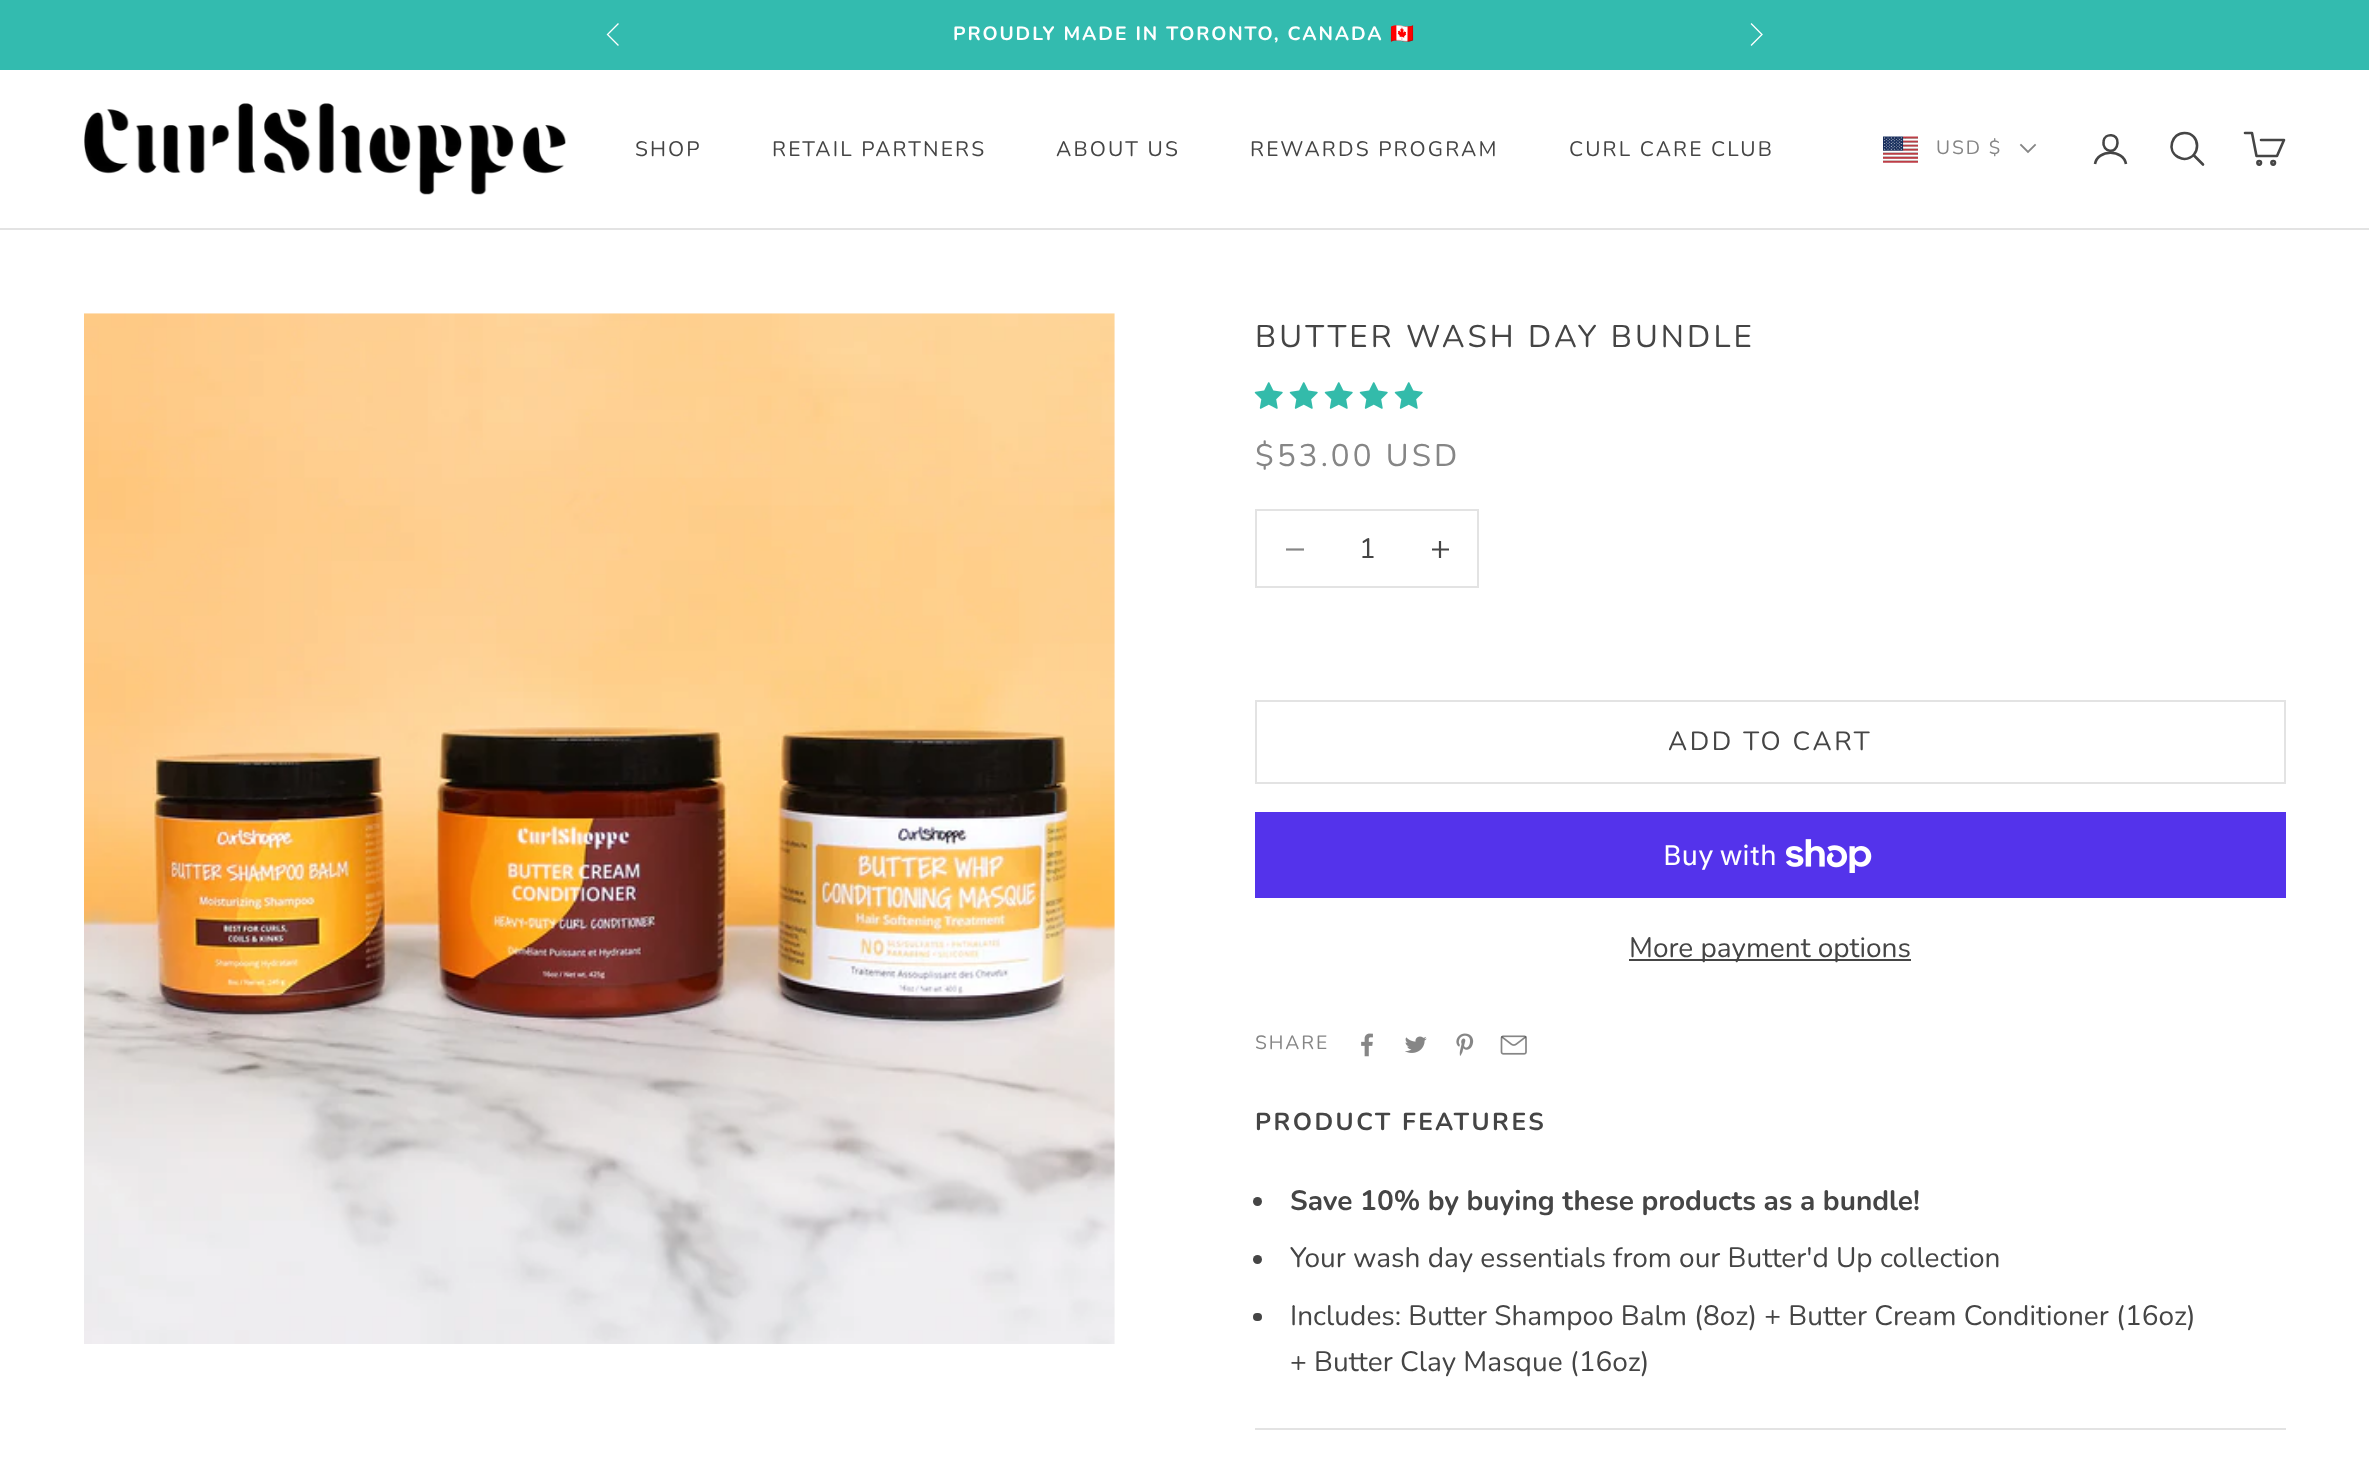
(async () => {
  const canvas = document.querySelector("canvas");
  canvas.width = 2369;
  canvas.height = 1459;
  const ctx = canvas.getContext("2d");
  ctx.miterLimit = 4;
  ctx.fontKerning = "normal";
  async function loadImage(src) {
    const img = new Image();
    img.src = src;
    await img.decode();
    return img;
  }
  let path;

  ctx.fillStyle = "#ffffff";
  ctx.fillRect(0, 0, 2369, 1459);
  ctx.fillStyle = "#33bbaf";
  ctx.fillRect(0, 0, 2369, 70);
  path = new Path2D("M618 24L607.5 34.5L618 45");
  ctx.strokeStyle = "#ffffff";
  ctx.lineWidth = 1.3;
  ctx.lineCap = "square";
  ctx.stroke(path);
  path = new Path2D("M1751.5 45L1762 34.5L1751.5 24");
  ctx.stroke(path);
  ctx.fillStyle = "#e3e3e3";
  ctx.fillRect(0, 228, 2369, 2);
  ctx.drawImage(await loadImage("img/1.png"), 84, 103, 482, 92);
  ctx.drawImage(await loadImage("img/2.png"), 1883, 136, 35, 27);
  path = new Path2D("M2021 145L2028 152L2035 145");
  ctx.strokeStyle = "#868686";
  ctx.lineWidth = 1.8;
  ctx.stroke(path);
  path = new Path2D("M2117.5 143C2117 154.5 2102 152.5 2103.5 141.5C2104.5 132.5 2118.5 133.5 2117.5 143Z");
  ctx.strokeStyle = "#454545";
  ctx.lineWidth = 2.6;
  ctx.lineCap = "round";
  ctx.lineJoin = "round";
  ctx.stroke(path);
  path = new Path2D("M2095 164C2097.5 149 2123.5 149 2126 164");
  ctx.lineCap = "butt";
  ctx.lineJoin = "miter";
  ctx.stroke(path);
  path = new Path2D("M2184.5 133C2171.5 133 2166.5 150.5 2178 157C2180 158 2182.5 159 2184.5 159C2201.5 158 2201 133 2184.5 133Z");
  ctx.stroke(path);
  path = new Path2D("M2194 155.5L2203 164.5");
  ctx.lineCap = "round";
  ctx.stroke(path);
  path = new Path2D("M2261 140H2284L2277 156H2256.5L2252 133H2245");
  ctx.lineJoin = "round";
  ctx.stroke(path);
  ctx.beginPath();
  ctx.arc(2259.2, 162.8, 1.8, 0, Math.PI * 2);
  ctx.stroke();
  ctx.beginPath();
  ctx.arc(2273.2, 162.8, 1.8, 0, Math.PI * 2);
  ctx.stroke();
  ctx.drawImage(await loadImage("img/3.png"), 84, 313, 1031, 1031);
  ctx.drawImage(await loadImage("img/4.png"), 1254, 382, 29, 27);
  ctx.drawImage(await loadImage("img/4.png"), 1289, 382, 29, 27);
  ctx.drawImage(await loadImage("img/4.png"), 1324, 382, 29, 27);
  ctx.drawImage(await loadImage("img/4.png"), 1359, 382, 29, 27);
  ctx.drawImage(await loadImage("img/4.png"), 1394, 382, 29, 27);
  ctx.strokeStyle = "#e3e3e3";
  ctx.lineWidth = 2;
  ctx.lineJoin = "miter";
  ctx.strokeRect(1256, 510, 222, 77);
  path = new Path2D("M1286 549.5H1304");
  ctx.strokeStyle = "#868686";
  ctx.lineWidth = 2.2;
  ctx.lineCap = "butt";
  ctx.stroke(path);
  ctx.save();
  ctx.beginPath();
  ctx.rect(1432, 541, 17, 17);
  ctx.clip();
  path = new Path2D("M1440 541V558M1431.5 549.5H1449");
  ctx.strokeStyle = "#454545";
  ctx.stroke(path);
  ctx.restore();
  ctx.strokeStyle = "#e3e3e3";
  ctx.lineWidth = 2;
  ctx.strokeRect(1256, 701, 1029, 82);
  ctx.fillStyle = "#5433eb";
  ctx.fillRect(1255, 812, 1031, 86);
  ctx.drawImage(await loadImage("img/5.png"), 1786, 839, 86, 34);
  ctx.fillStyle = "#454545";
  ctx.fillRect(1629, 959, 282, 2);
  ctx.drawImage(await loadImage("img/6.png"), 1361, 1033, 12, 24);
  ctx.drawImage(await loadImage("img/7.png"), 1405, 1036, 22, 17);
  ctx.drawImage(await loadImage("img/8.png"), 1456, 1033, 18, 23);
  ctx.drawImage(await loadImage("img/9.png"), 1500, 1035, 27, 20);
  ctx.beginPath();
  ctx.arc(1257.5, 1201.5, 4.5, 0, Math.PI * 2);
  ctx.fill();
  ctx.beginPath();
  ctx.arc(1257.5, 1259.5, 4.5, 0, Math.PI * 2);
  ctx.fill();
  ctx.beginPath();
  ctx.roundRect(1253, 1313, 9, 8, 4);
  ctx.fill();
  ctx.fillStyle = "#e3e3e3";
  ctx.fillRect(1255, 1428, 1031, 2);
  ctx.letterSpacing = "1.9px";
  ctx.font = "bold 19.25px Nunito";
  ctx.fillStyle = "#ffffff";
  ctx.fillText("PROUDLY MADE IN TORONTO, CANADA", 953, 40);
  ctx.font = "19.25px Noto Color Emoji";
  ctx.fillText("🇨🇦", 1390, 40);
  ctx.letterSpacing = "2.1px";
  ctx.font = "21px Nunito";
  ctx.fillStyle = "#454545";
  for (const [text, x, y] of [
    ["SHOP", 635, 156],
    ["RETAIL PARTNERS", 772, 156],
    ["ABOUT US", 1056, 156],
    ["REWARDS PROGRAM", 1250, 156],
    ["CURL CARE CLUB", 1569, 156],
  ]) {
    ctx.fillText(text, x, y);
  }
  ctx.letterSpacing = "1.9px";
  ctx.font = "19.25px Nunito";
  ctx.fillStyle = "#868686";
  ctx.fillText("USD $", 1936, 154);
  ctx.letterSpacing = "3.1px";
  ctx.font = "31.3px Nunito";
  ctx.fillStyle = "#454545";
  ctx.fillText("BUTTER WASH DAY BUNDLE", 1255, 347);
  ctx.fillStyle = "#868686";
  ctx.fillText("$53.00 USD", 1255, 466);
  ctx.letterSpacing = "0px";
  ctx.font = "28px Nunito";
  ctx.fillStyle = "#454545";
  ctx.fillText("1", 1359, 558);
  ctx.letterSpacing = "2.6px";
  ctx.font = "26.25px Nunito";
  ctx.fillText("ADD TO CART", 1668, 750);
  ctx.letterSpacing = "0px";
  ctx.font = "28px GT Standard";
  ctx.fillStyle = "#ffffff";
  ctx.fillText("Buy with", 1663, 865);
  ctx.font = "28px Nunito";
  ctx.fillStyle = "#454545";
  ctx.fillText("More payment options", 1629, 957);
  ctx.letterSpacing = "1.9px";
  ctx.font = "19.25px Nunito";
  ctx.fillStyle = "#868686";
  ctx.fillText("SHARE", 1255, 1049);
  ctx.letterSpacing = "2.5px";
  ctx.font = "bold 24.5px Nunito";
  ctx.fillStyle = "#454545";
  ctx.fillText("PRODUCT FEATURES", 1255, 1130);
  ctx.letterSpacing = "0px";
  ctx.font = "bold 28px Nunito";
  ctx.fillText("Save 10% by buying these products as a bundle!", 1290, 1210);
  ctx.font = "28px Nunito";
  for (const [text, x, y] of [
    ["Your wash day essentials from our Butter'd Up collection", 1290, 1267],
    ["Includes: Butter Shampoo Balm (8oz) + Butter Cream Conditioner (16oz)", 1290, 1325],
    ["+ Butter Clay Masque (16oz)", 1290, 1371],
  ]) {
    ctx.fillText(text, x, y);
  }
})();
